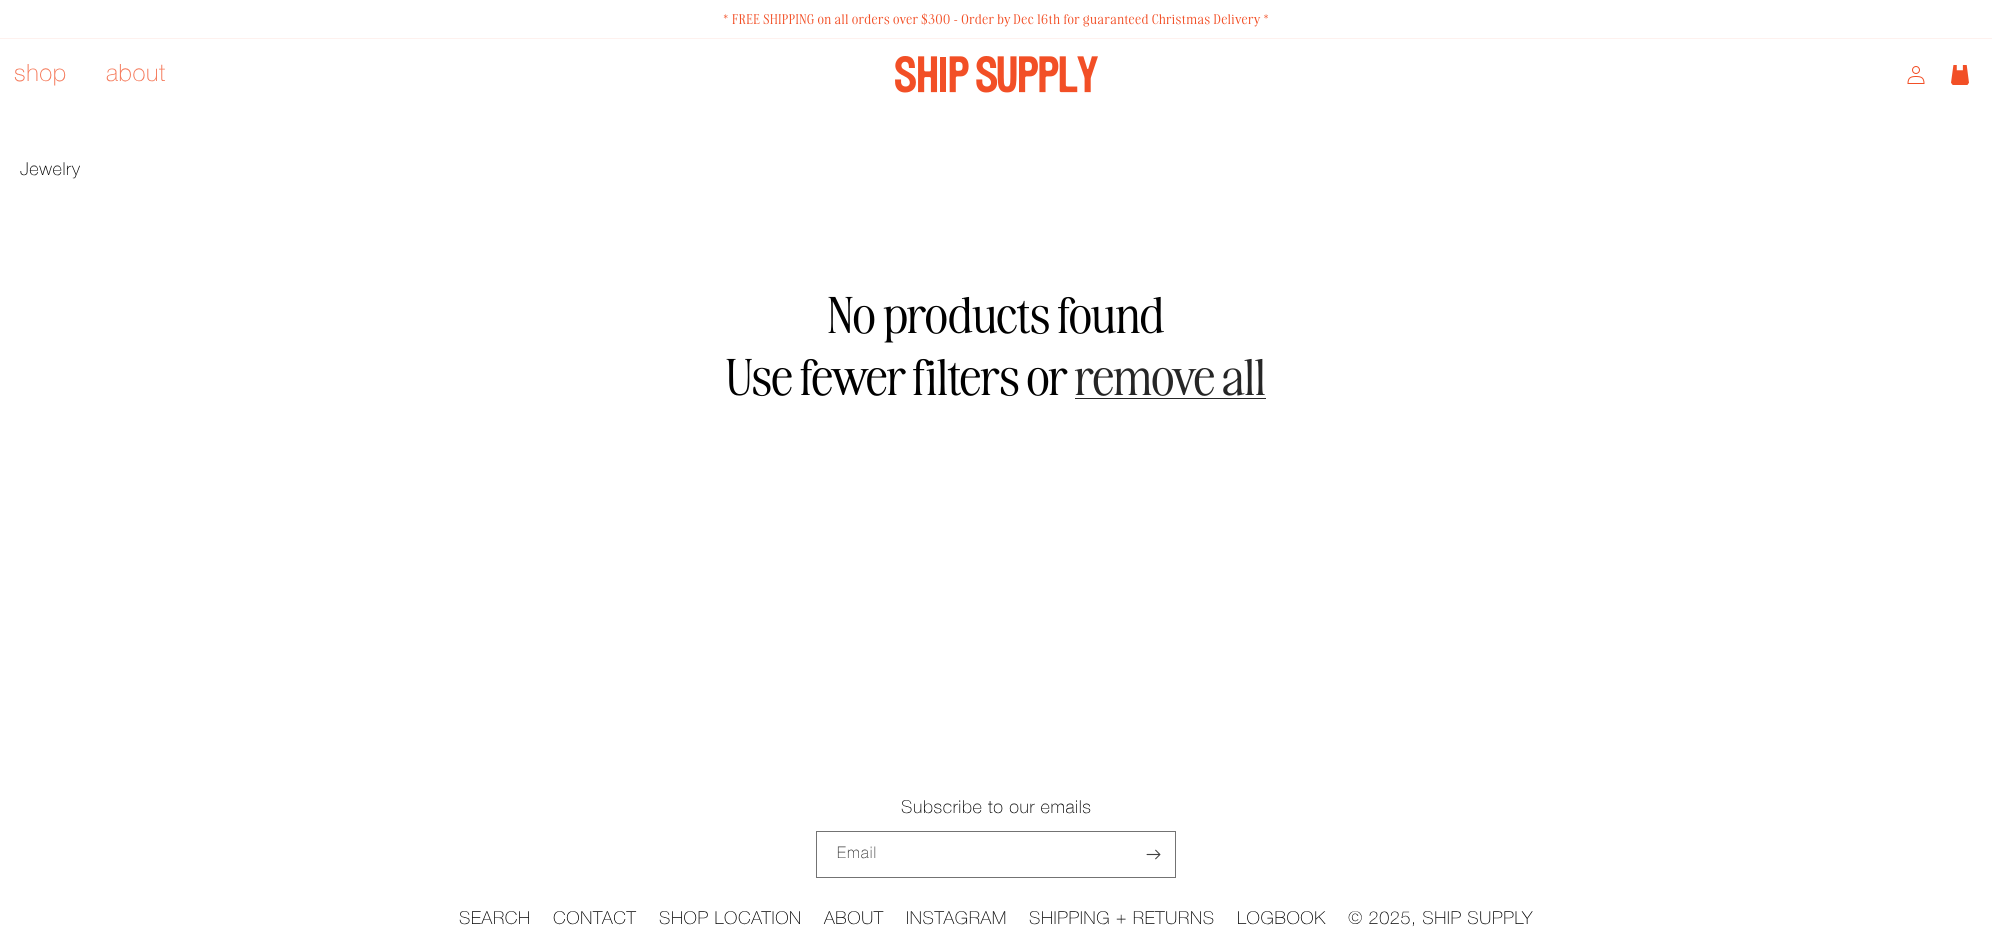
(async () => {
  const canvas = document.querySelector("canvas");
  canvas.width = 1992;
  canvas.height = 940;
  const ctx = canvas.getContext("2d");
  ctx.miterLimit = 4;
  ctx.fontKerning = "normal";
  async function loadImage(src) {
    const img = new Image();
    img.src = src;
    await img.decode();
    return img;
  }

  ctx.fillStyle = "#ffffff";
  ctx.fillRect(0, 0, 1992, 940);
  ctx.fillStyle = "#fef1ee";
  ctx.fillRect(0, 38, 1992, 1);
  ctx.drawImage(await loadImage("img/1.png"), 723, 13, 545, 14);
  ctx.drawImage(await loadImage("img/2.png"), 895, 56, 203, 37);
  ctx.drawImage(await loadImage("img/3.png"), 1907, 66, 18, 18);
  ctx.drawImage(await loadImage("img/4.png"), 1951, 65, 18, 20);
  ctx.drawImage(await loadImage("img/5.png"), 828, 296, 336, 47);
  ctx.drawImage(await loadImage("img/6.png"), 726, 358, 342, 39);
  ctx.drawImage(await loadImage("img/7.png"), 1074, 358, 191, 38);
  ctx.fillStyle = "#262626";
  ctx.fillRect(1075, 398, 191, 1);
  ctx.strokeStyle = "#737373";
  ctx.strokeRect(816.5, 831.5, 359, 46);
  ctx.drawImage(await loadImage("img/8.png"), 1146, 849, 15, 11);
  ctx.letterSpacing = "0.6px";
  ctx.font = "100 24px Helvetica Neue";
  ctx.fillStyle = "#f57b5c";
  ctx.fillText("shop", 14, 81);
  ctx.fillText("about", 106, 81);
  ctx.font = "100 18px Helvetica Neue";
  ctx.fillStyle = "#000000";
  ctx.fillText("Jewelry", 20, 175);
  ctx.fillText("Subscribe to our emails", 901, 813);
  ctx.letterSpacing = "1px";
  ctx.font = "100 16px Helvetica Neue";
  ctx.fillStyle = "#404040";
  ctx.fillText("Email", 837, 858);
  ctx.letterSpacing = "0.6px";
  ctx.font = "100 18px Helvetica Neue";
  ctx.fillStyle = "#000000";
  for (const [text, x, y] of [
    ["SEARCH", 459, 924],
    ["CONTACT", 553, 924],
    ["SHOP LOCATION", 659, 924],
    ["ABOUT", 824, 924],
    ["INSTAGRAM", 906, 924],
    ["SHIPPING + RETURNS", 1029, 924],
    ["LOGBOOK", 1237, 924],
    ["© 2025, SHIP SUPPLY", 1348, 924],
  ]) {
    ctx.fillText(text, x, y);
  }
})();
